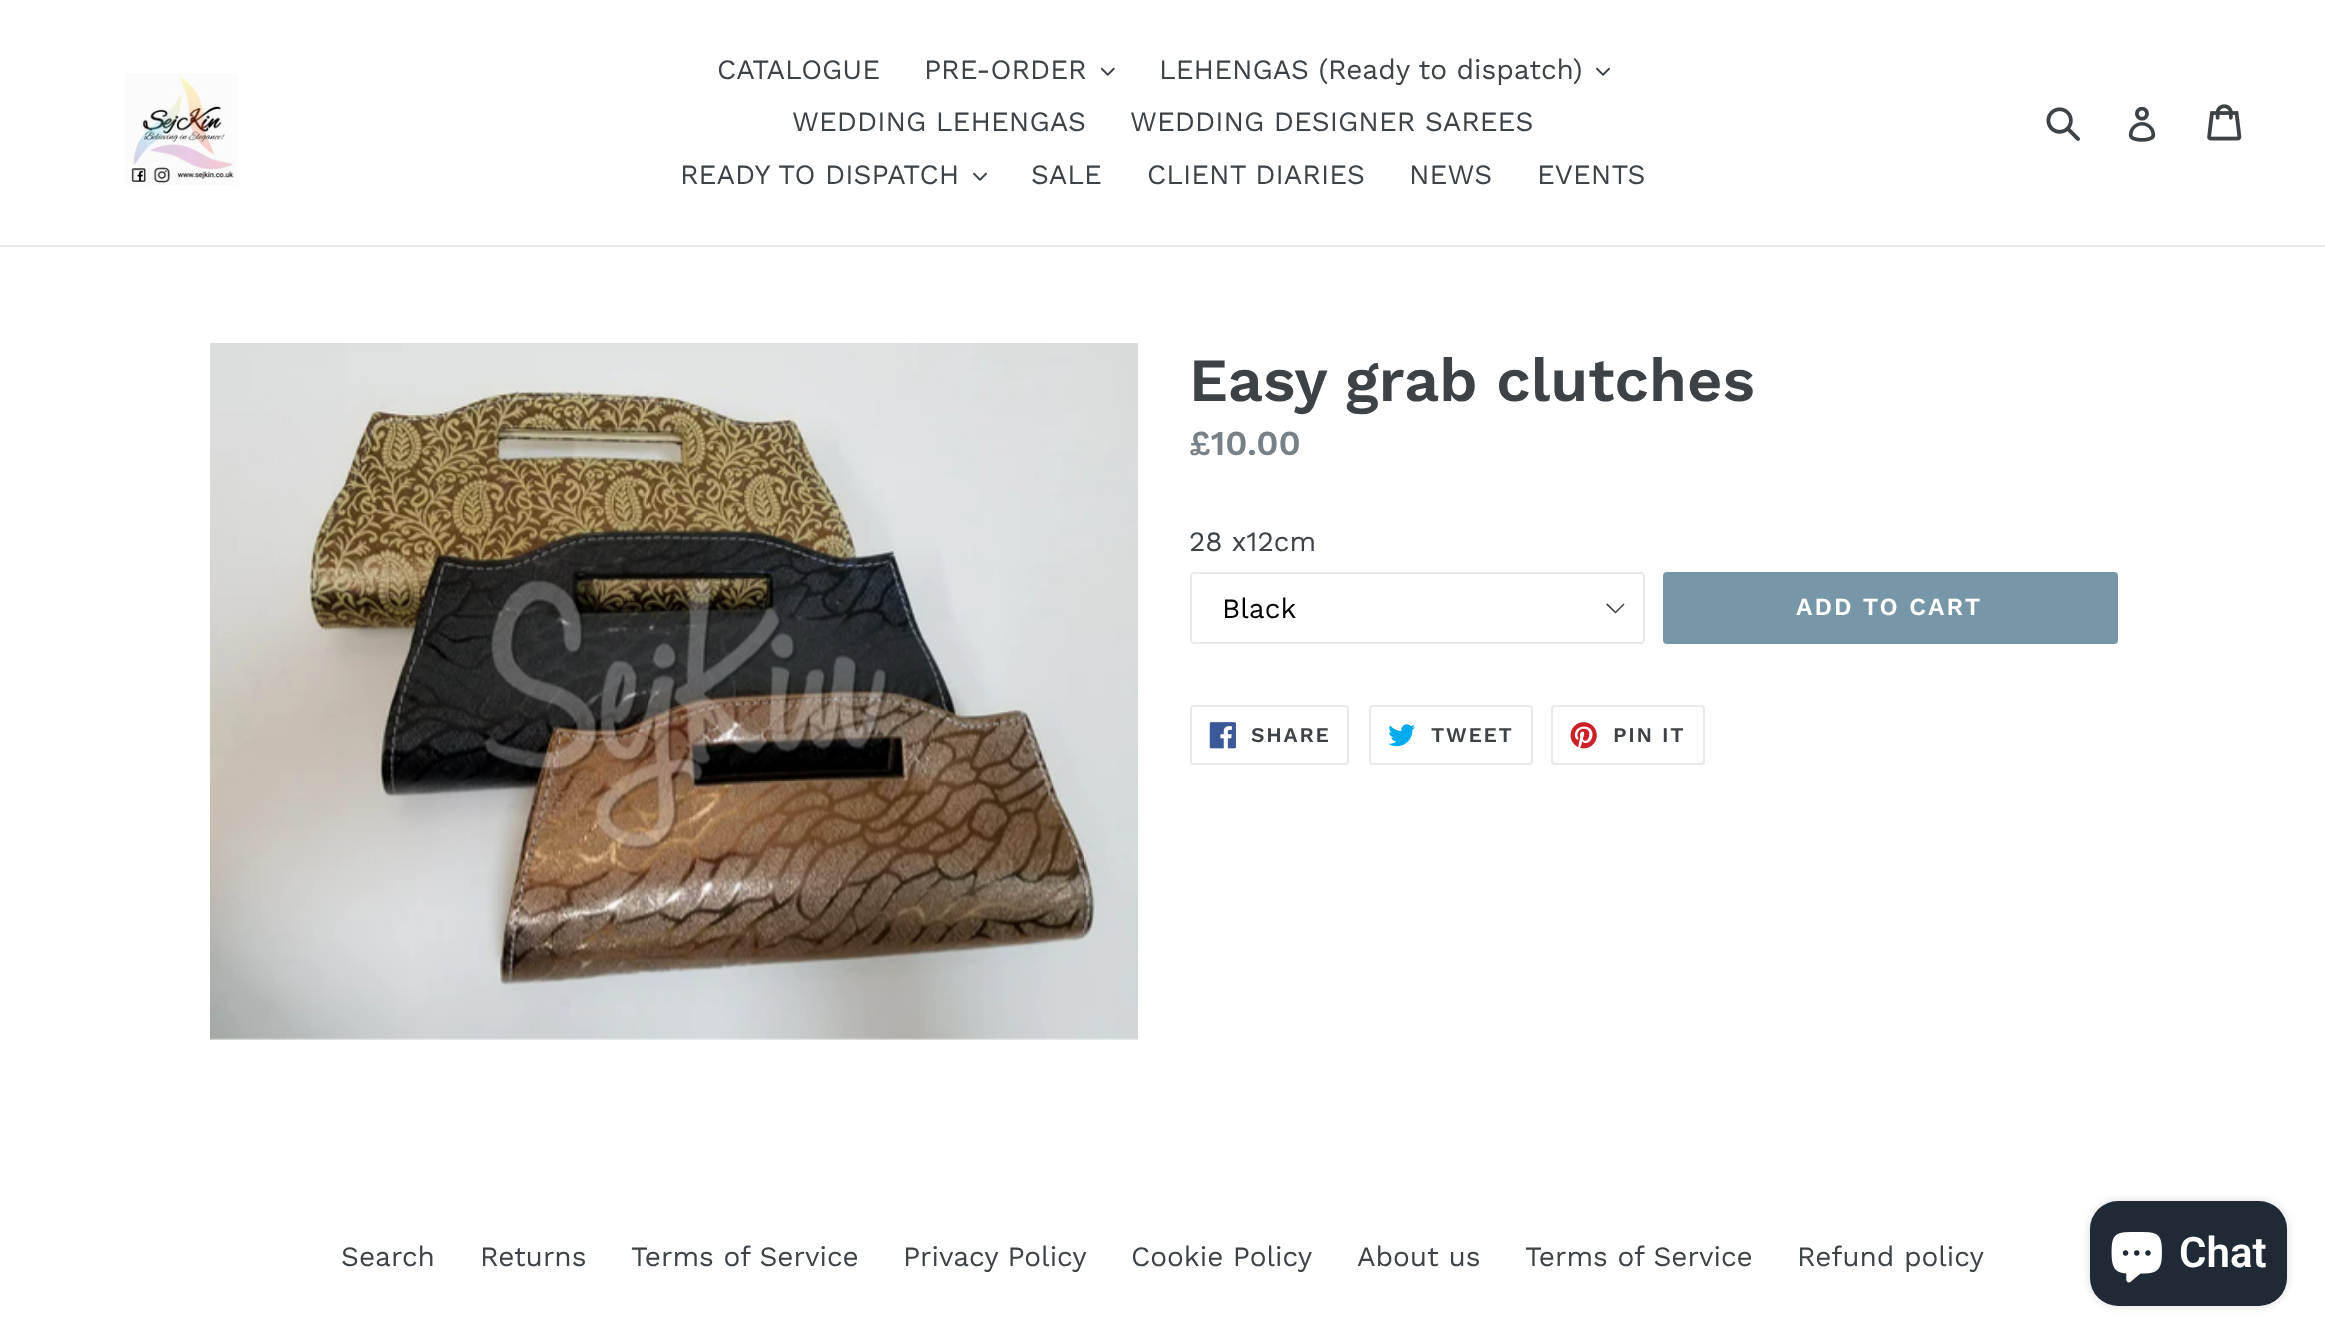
(async () => {
  const canvas = document.querySelector("canvas");
  canvas.width = 2325;
  canvas.height = 1341;
  const ctx = canvas.getContext("2d");
  ctx.miterLimit = 4;
  ctx.fontKerning = "normal";
  async function loadImage(src) {
    const img = new Image();
    img.src = src;
    await img.decode();
    return img;
  }
  let path;

  ctx.fillStyle = "#ffffff";
  ctx.fillRect(0, 0, 2325, 1341);
  ctx.fillStyle = "#e8e9eb";
  ctx.fillRect(0, 245, 2325, 2);
  ctx.drawImage(await loadImage("img/1.png"), 125, 73, 112, 112);
  ctx.drawImage(await loadImage("img/2.png"), 1101, 67, 14, 9);
  ctx.drawImage(await loadImage("img/3.png"), 1596, 67, 14, 9);
  ctx.drawImage(await loadImage("img/3.png"), 973, 172, 14, 9);
  ctx.drawImage(await loadImage("img/4.png"), 2046, 107, 34, 34);
  ctx.drawImage(await loadImage("img/5.png"), 2128, 107, 28, 35);
  ctx.drawImage(await loadImage("img/6.png"), 2207, 104, 35, 37);
  ctx.drawImage(await loadImage("img/7.png"), 210, 343, 928, 697);
  ctx.fillStyle = "#3d4246";
  path = new Path2D("M1615.5 613.5L1606 604.5L1607.5 603.5L1615.5 611.5L1623.5 603.5L1624.5 604.5Z");
  ctx.fill(path);
  ctx.beginPath();
  ctx.roundRect(1191, 573, 453, 70, 3);
  ctx.strokeStyle = "#e8e9eb";
  ctx.lineWidth = 2;
  ctx.stroke();
  ctx.fillStyle = "#7796a8";
  ctx.beginPath();
  ctx.roundRect(1663, 572, 455, 72, 4);
  ctx.fill();
  ctx.beginPath();
  ctx.roundRect(1191, 706, 157, 58, 3);
  ctx.stroke();
  ctx.drawImage(await loadImage("img/8.png"), 1209, 722, 27, 27);
  ctx.beginPath();
  ctx.roundRect(1370, 706, 162, 58, 3);
  ctx.stroke();
  ctx.drawImage(await loadImage("img/9.png"), 1388, 724, 27, 23);
  ctx.beginPath();
  ctx.roundRect(1552, 706, 152, 58, 3);
  ctx.stroke();
  ctx.drawImage(await loadImage("img/10.png"), 1570, 722, 27, 27);
  ctx.fillStyle = "rgba(0, 0, 0, 0.15)";
  ctx.filter = "blur(4.5px)";
  ctx.beginPath();
  ctx.roundRect(2090, 1201, 197, 105, 28);
  ctx.fill();
  ctx.filter = "none";
  ctx.fillStyle = "#202a36";
  ctx.beginPath();
  ctx.roundRect(2090, 1201, 197, 105, 28);
  ctx.fill();
  ctx.drawImage(await loadImage("img/11.png"), 2111, 1232, 51, 51);
  ctx.font = "28px Work Sans";
  ctx.fillStyle = "#3d4246";
  for (const [text, x, y] of [
    ["CATALOGUE", 717, 79],
    ["PRE-ORDER", 924, 79],
    ["LEHENGAS (Ready to dispatch)", 1159, 79],
    ["WEDDING LEHENGAS", 792, 131],
    ["WEDDING DESIGNER SAREES", 1130, 131],
    ["READY TO DISPATCH", 680, 184],
    ["SALE", 1031, 184],
    ["CLIENT DIARIES", 1147, 184],
    ["NEWS", 1409, 184],
    ["EVENTS", 1537, 184],
  ]) {
    ctx.fillText(text, x, y);
  }
  ctx.font = "600 61.25px Work Sans";
  ctx.fillText("Easy grab clutches", 1189, 401);
  ctx.font = "600 35px Work Sans";
  ctx.fillStyle = "#788188";
  ctx.fillText("£10.00", 1189, 455);
  ctx.font = "28px Work Sans";
  ctx.fillStyle = "#3d4246";
  ctx.fillText("28 x12cm", 1189, 551);
  ctx.fillStyle = "#000000";
  ctx.fillText("Black", 1222, 618);
  ctx.letterSpacing = "2px";
  ctx.font = "600 24.5px Work Sans";
  ctx.fillStyle = "#ffffff";
  ctx.fillText("ADD TO CART", 1796, 615);
  ctx.letterSpacing = "1.75px";
  ctx.font = "600 21px Work Sans";
  ctx.fillStyle = "#3d4246";
  for (const [text, x, y] of [
    ["SHARE", 1251, 742],
    ["TWEET", 1431, 742],
    ["PIN IT", 1613, 742],
  ]) {
    ctx.fillText(text, x, y);
  }
  ctx.letterSpacing = "0px";
  ctx.font = "28px Work Sans";
  for (const [text, x, y] of [
    ["Search", 341, 1266],
    ["Returns", 480, 1266],
    ["Terms of Service", 631, 1266],
    ["Privacy Policy", 903, 1266],
    ["Cookie Policy", 1131, 1266],
    ["About us", 1357, 1266],
    ["Terms of Service", 1525, 1266],
    ["Refund policy", 1797, 1266],
  ]) {
    ctx.fillText(text, x, y);
  }
  ctx.font = "600 42px Roboto";
  ctx.fillStyle = "#ffffff";
  ctx.fillText("Chat", 2179, 1267);
})();
